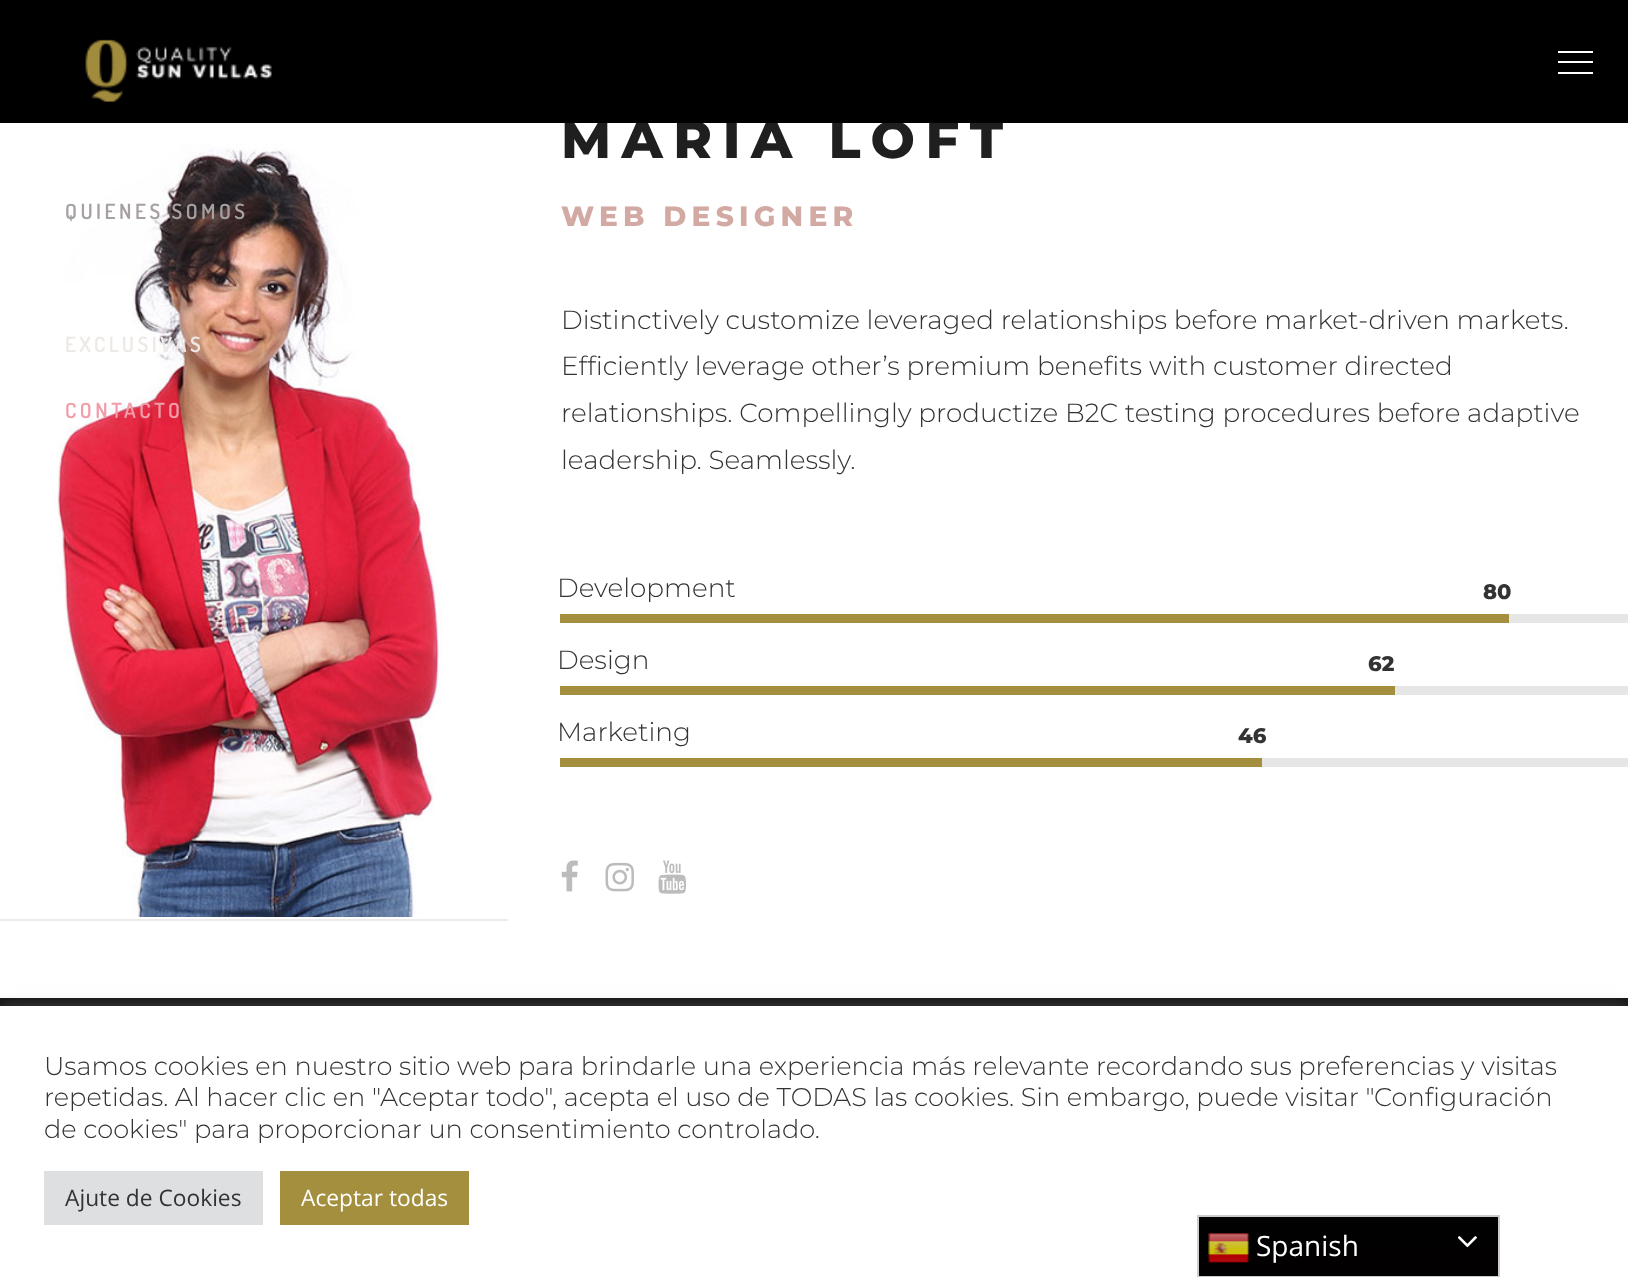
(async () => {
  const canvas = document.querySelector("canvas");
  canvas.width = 1628;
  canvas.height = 1277;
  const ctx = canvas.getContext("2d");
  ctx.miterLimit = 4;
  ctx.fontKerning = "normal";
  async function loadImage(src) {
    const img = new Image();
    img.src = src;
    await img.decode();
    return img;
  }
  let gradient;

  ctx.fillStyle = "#ffffff";
  ctx.fillRect(0, 0, 1628, 1277);
  ctx.drawImage(await loadImage("img/2.png"), 56, 143, 386, 774);
  for (const [x, y, w, h, color] of [
    [0, 919, 508, 2, "#ebebeb"],
    [1509, 614, 119, 9, "#e6e6e6"],
    [560, 614, 949, 9, "#a38f3d"],
    [1395, 686, 233, 9, "#e6e6e6"],
    [560, 686, 835, 9, "#a38f3d"],
    [1262, 758, 366, 9, "#e6e6e6"],
    [560, 758, 702, 9, "#a38f3d"],
  ]) {
    ctx.fillStyle = color;
    ctx.fillRect(x, y, w, h);
  }
  ctx.drawImage(await loadImage("img/3.png"), 561, 860, 17, 32);
  ctx.drawImage(await loadImage("img/4.png"), 605, 862, 29, 30);
  ctx.drawImage(await loadImage("img/5.png"), 658, 860, 28, 34);
  ctx.fillStyle = "#121212";
  ctx.fillRect(0, 998, 1628, 8);
  ctx.fillStyle = "rgba(172, 171, 171, 0.3)";
  ctx.filter = "blur(9px)";
  ctx.beginPath();
  ctx.rect(0, 1005, 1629, 271);
  ctx.fill();
  ctx.filter = "none";
  for (const [x, y, w, h, color] of [
    [0, 1006, 1628, 271, "#ffffff"],
    [44, 1171, 219, 54, "#dedfe0"],
    [280, 1171, 189, 54, "#a38f3d"],
  ]) {
    ctx.fillStyle = color;
    ctx.fillRect(x, y, w, h);
  }
  gradient = ctx.createLinearGradient(1348, 1215, 1348, 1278);
  gradient.addColorStop(0, "#020202");
  gradient.addColorStop(0.7, "#020000");
  ctx.fillStyle = gradient;
  ctx.fillRect(1199, 1217, 299, 59);
  ctx.strokeStyle = "#cccccc";
  ctx.lineWidth = 2;
  ctx.strokeRect(1198, 1216, 301, 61);
  ctx.drawImage(await loadImage("img/6.png"), 1208, 1233, 42, 30);
  ctx.drawImage(await loadImage("img/7.png"), 1458, 1236, 19, 12);
  ctx.letterSpacing = "3.5px";
  ctx.font = "600 21px Dosis";
  ctx.fillStyle = "#a6a0a1";
  ctx.fillText("QUIENES SOMOS", 65, 219);
  ctx.fillStyle = "#eee8e6";
  ctx.fillText("EXCLUSIVAS", 65, 352);
  ctx.fillStyle = "#f19eaa";
  ctx.fillText("CONTACTO", 65, 418);
  ctx.letterSpacing = "10.5px";
  ctx.font = "800 52.5px Montserrat";
  ctx.fillStyle = "#1f1f1f";
  ctx.fillText("MARIA LOFT", 561, 158);
  ctx.fillStyle = "#000000";
  ctx.fillRect(0, 0, 1628, 123);
  ctx.drawImage(await loadImage("img/1.png"), 85, 39, 187, 64);
  for (const [x, y, w, h, color] of [
    [1558, 72, 35, 2, "#ffffff"],
    [1558, 61, 35, 2, "#ffffff"],
    [1558, 51, 35, 2, "#ffffff"],
  ]) {
    ctx.fillStyle = color;
    ctx.fillRect(x, y, w, h);
  }
  ctx.letterSpacing = "5.25px";
  ctx.font = "800 28px Montserrat";
  ctx.fillStyle = "#d3aaa3";
  ctx.fillText("WEB DESIGNER", 561, 226);
  ctx.letterSpacing = "0px";
  ctx.font = "300 26.25px Montserrat";
  ctx.fillStyle = "#333333";
  for (const [text, x, y] of [
    ["Distinctively customize leveraged relationships before market-driven markets.", 561, 329],
    ["Efficiently leverage other’s premium benefits with customer directed", 561, 375],
    ["relationships. Compellingly productize B2C testing procedures before adaptive", 561, 422],
    ["leadership. Seamlessly.", 561, 469],
    ["Development", 557, 597],
  ]) {
    ctx.fillText(text, x, y);
  }
  ctx.font = "800 21px Montserrat";
  ctx.fillText("80", 1483, 599);
  ctx.font = "300 26.25px Montserrat";
  ctx.fillText("Design", 557, 669);
  ctx.font = "800 21px Montserrat";
  ctx.fillText("62", 1368, 671);
  ctx.font = "300 26.25px Montserrat";
  ctx.fillText("Marketing", 557, 741);
  ctx.font = "800 21px Montserrat";
  ctx.fillText("46", 1238, 743);
  ctx.font = "300 25.67px Montserrat";
  for (const [text, x, y] of [
    ["Usamos cookies en nuestro sitio web para brindarle una experiencia más relevante recordando sus preferencias y visitas", 44, 1075],
    ["repetidas. Al hacer clic en \"Aceptar todo\", acepta el uso de TODAS las cookies. Sin embargo, puede visitar \"Configuración", 44, 1106],
    ["de cookies\" para proporcionar un consentimiento controlado.", 44, 1138],
  ]) {
    ctx.fillText(text, x, y);
  }
  ctx.font = "22.75px Open Sans";
  ctx.fillText("Ajute de Cookies", 65, 1206);
  ctx.fillStyle = "#ffffff";
  ctx.fillText("Aceptar todas", 301, 1206);
  ctx.font = "28px Open Sans";
  ctx.fillText("Spanish", 1256, 1256);
})();
